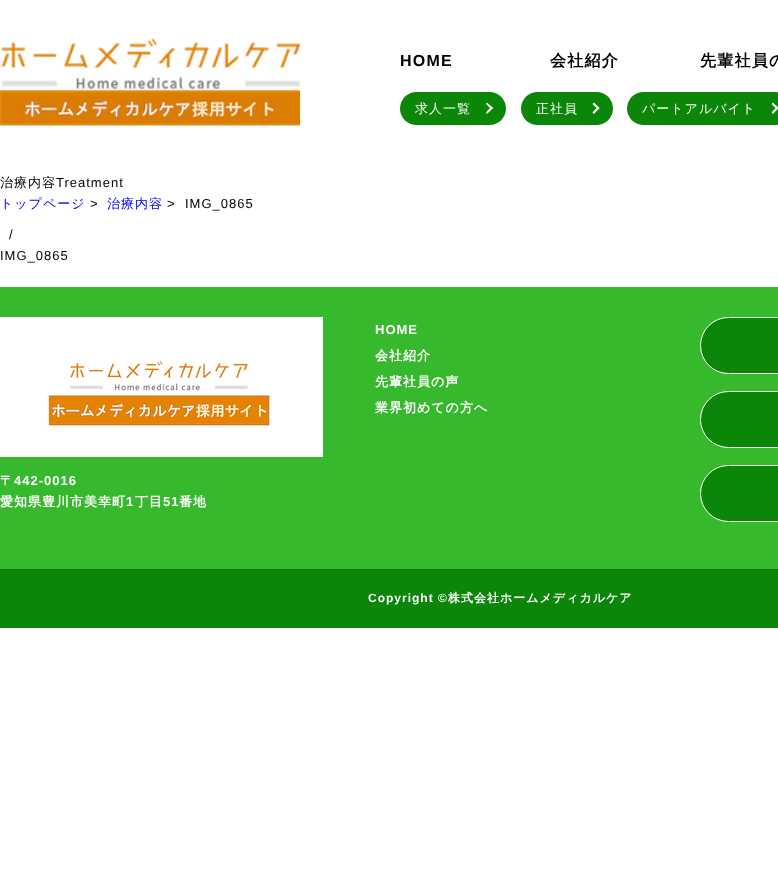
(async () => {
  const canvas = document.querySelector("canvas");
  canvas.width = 778;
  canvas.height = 872;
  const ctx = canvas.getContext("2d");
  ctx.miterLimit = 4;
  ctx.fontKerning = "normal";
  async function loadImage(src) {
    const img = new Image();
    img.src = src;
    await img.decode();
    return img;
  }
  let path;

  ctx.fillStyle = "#ffffff";
  ctx.fillRect(0, 0, 778, 872);
  ctx.drawImage(await loadImage("img/1.png"), 0, 38, 300, 88);
  ctx.fillStyle = "#0b8608";
  ctx.beginPath();
  ctx.roundRect(400, 92, 106, 33, 16.5);
  ctx.fill();
  ctx.fillStyle = "#ffffff";
  path = new Path2D("M491.5 109.5L486 104L487 102.5L493 108Z");
  ctx.fill(path);
  path = new Path2D("M487 114L486 112.5L491.5 106.5L493 108Z");
  ctx.fill(path);
  ctx.fillStyle = "#0b8608";
  ctx.beginPath();
  ctx.roundRect(521, 92, 92, 33, 16.5);
  ctx.fill();
  ctx.fillStyle = "#ffffff";
  path = new Path2D("M598 109.5L592.5 104L594 102.5L599.5 108Z");
  ctx.fill(path);
  path = new Path2D("M594 114L592.5 112.5L598 106.5L599.5 108Z");
  ctx.fill(path);
  ctx.fillStyle = "#0b8608";
  ctx.beginPath();
  ctx.roundRect(627, 92, 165, 33, 16.5);
  ctx.fill();
  ctx.fillStyle = "#ffffff";
  path = new Path2D("M777 109.5L771.5 104L773 102.5L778.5 108Z");
  ctx.fill(path);
  path = new Path2D("M773 114L771.5 112.5L777 106.5L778.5 108Z");
  ctx.fill(path);
  ctx.fillStyle = "#36b92c";
  ctx.fillRect(0, 287, 778, 282);
  ctx.fillStyle = "#0b8608";
  ctx.beginPath();
  ctx.roundRect(700.5, 317.5, 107, 56, 28);
  ctx.fill();
  ctx.strokeStyle = "#ffffff";
  ctx.stroke();
  ctx.beginPath();
  ctx.roundRect(700.5, 391.5, 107, 56, 28);
  ctx.fill();
  ctx.stroke();
  ctx.beginPath();
  ctx.roundRect(700.5, 465.5, 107, 56, 28);
  ctx.fill();
  ctx.stroke();
  ctx.drawImage(await loadImage("img/2.png"), 0, 317, 323, 140);
  ctx.fillRect(0, 569, 778, 59);
  ctx.letterSpacing = "1.25px";
  ctx.font = "bold 16px Liberation Sans";
  ctx.fillStyle = "#000000";
  ctx.fillText("HOME", 400, 66);
  ctx.font = "bold 16px WenQuanYi Zen Hei";
  ctx.fillText("会社紹介", 550, 66);
  ctx.fillText("先輩社員の", 700, 66);
  ctx.letterSpacing = "1px";
  ctx.font = "500 13px WenQuanYi Zen Hei";
  ctx.fillStyle = "#ffffff";
  for (const [text, x, y] of [
    ["求人一覧", 415, 113],
    ["正社員", 536, 113],
    ["パートアルバイト", 642, 113],
  ]) {
    ctx.fillText(text, x, y);
  }
  ctx.fillStyle = "#000000";
  ctx.fillText("治療内容", 0, 187);
  ctx.font = "13px Liberation Sans";
  ctx.fillText("Treatment", 56, 187);
  ctx.font = "500 13px WenQuanYi Zen Hei";
  ctx.fillStyle = "#0000ee";
  ctx.fillText("トップページ", 0, 208);
  ctx.font = "13px Liberation Sans";
  ctx.fillStyle = "#000000";
  ctx.fillText(">", 90, 208);
  ctx.font = "500 13px WenQuanYi Zen Hei";
  ctx.fillStyle = "#0000ee";
  ctx.fillText("治療内容", 107, 208);
  ctx.font = "13px Liberation Sans";
  ctx.fillStyle = "#000000";
  for (const [text, x, y] of [
    [">", 167, 208],
    ["IMG_0865", 185, 208],
    ["/", 9, 239],
    ["IMG_0865", 0, 260],
  ]) {
    ctx.fillText(text, x, y);
  }
  ctx.font = "bold 13px Liberation Sans";
  ctx.fillStyle = "#ffffff";
  ctx.fillText("HOME", 375, 334);
  ctx.font = "bold 13px WenQuanYi Zen Hei";
  for (const [text, x, y] of [
    ["会社紹介", 375, 360],
    ["先輩社員の声", 375, 386],
    ["業界初めての方へ", 375, 412],
    ["〒", 0, 485],
  ]) {
    ctx.fillText(text, x, y);
  }
  ctx.font = "bold 13px Liberation Sans";
  ctx.fillText("442-0016", 14, 485);
  ctx.font = "bold 13px WenQuanYi Zen Hei";
  ctx.fillText("愛知県豊川市美幸町", 0, 506);
  ctx.font = "bold 13px Liberation Sans";
  ctx.fillText("1", 126, 506);
  ctx.font = "bold 13px WenQuanYi Zen Hei";
  ctx.fillText("丁目", 135, 506);
  ctx.font = "bold 13px Liberation Sans";
  ctx.fillText("51", 163, 506);
  ctx.font = "bold 13px WenQuanYi Zen Hei";
  ctx.fillText("番地", 179, 506);
  ctx.font = "bold 12px Liberation Sans";
  ctx.fillText("Copyright ©", 368, 602);
  ctx.font = "bold 12px WenQuanYi Zen Hei";
  ctx.fillText("株式会社ホームメディカルケア", 448, 602);
})();
